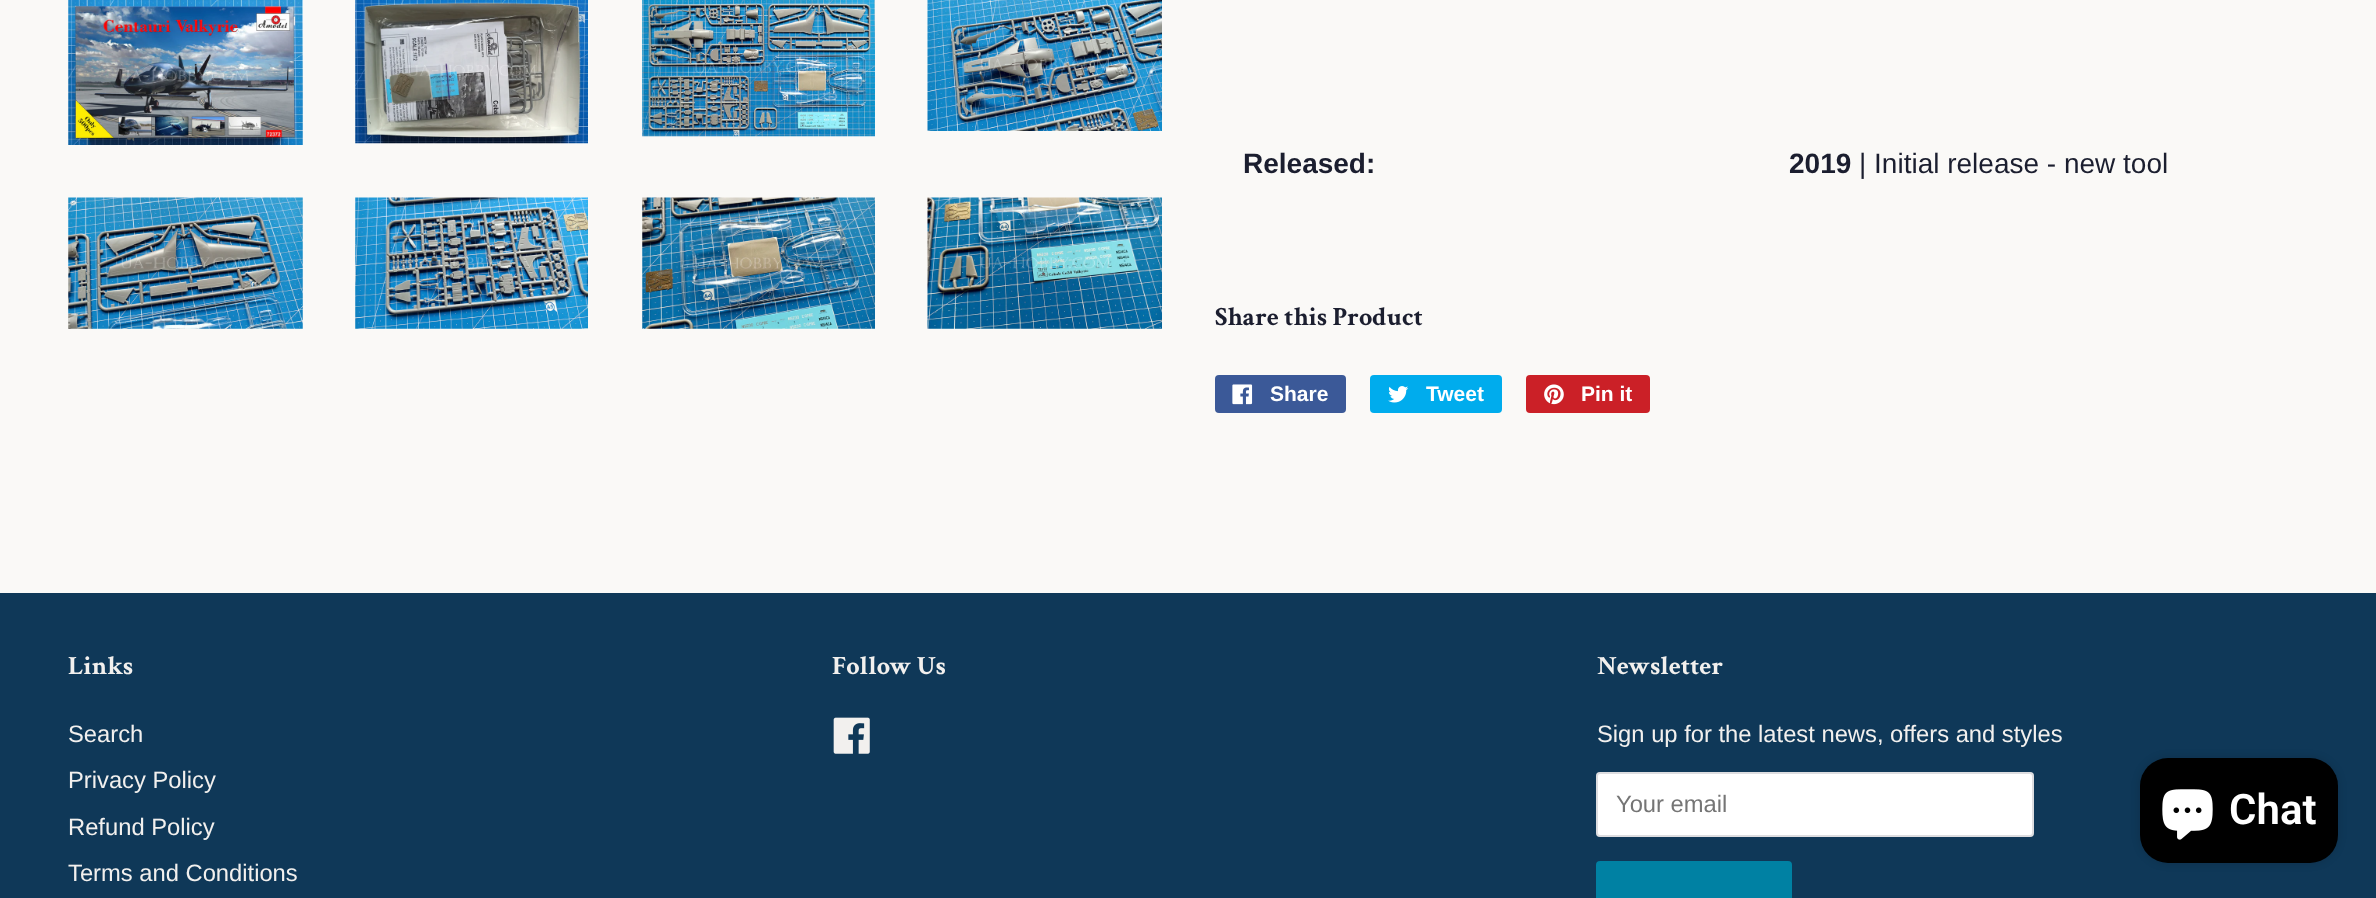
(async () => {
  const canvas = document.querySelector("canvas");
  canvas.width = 2376;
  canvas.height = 898;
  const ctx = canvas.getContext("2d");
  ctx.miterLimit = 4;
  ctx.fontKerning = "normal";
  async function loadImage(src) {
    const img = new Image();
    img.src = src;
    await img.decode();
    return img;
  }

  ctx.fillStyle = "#faf9f7";
  ctx.fillRect(0, 0, 2376, 898);
  ctx.drawImage(await loadImage("img/1.png"), 68, 0, 235, 145);
  ctx.drawImage(await loadImage("img/2.png"), 355, 0, 233, 144);
  ctx.drawImage(await loadImage("img/3.png"), 642, 0, 233, 137);
  ctx.drawImage(await loadImage("img/4.png"), 927, 0, 235, 131);
  ctx.drawImage(await loadImage("img/5.png"), 68, 197, 235, 132);
  ctx.drawImage(await loadImage("img/6.png"), 355, 197, 233, 132);
  ctx.drawImage(await loadImage("img/7.png"), 642, 197, 233, 132);
  ctx.drawImage(await loadImage("img/8.png"), 927, 197, 235, 132);
  ctx.fillStyle = "#3b5998";
  ctx.beginPath();
  ctx.roundRect(1215, 375, 131, 38, 4);
  ctx.fill();
  ctx.drawImage(await loadImage("img/9.png"), 1232, 384, 21, 21);
  ctx.fillStyle = "#00aced";
  ctx.beginPath();
  ctx.roundRect(1370, 375, 132, 38, 4);
  ctx.fill();
  ctx.drawImage(await loadImage("img/10.png"), 1388, 386, 21, 17);
  ctx.fillStyle = "#cb2027";
  ctx.beginPath();
  ctx.roundRect(1526, 375, 124, 38, 4);
  ctx.fill();
  ctx.drawImage(await loadImage("img/11.png"), 1544, 384, 20, 21);
  ctx.fillStyle = "#0f3858";
  ctx.fillRect(0, 593, 2376, 305);
  ctx.drawImage(await loadImage("img/12.png"), 833, 717, 37, 37);
  ctx.fillStyle = "#ffffff";
  ctx.beginPath();
  ctx.roundRect(1596, 772, 438, 65, 4);
  ctx.fill();
  ctx.beginPath();
  ctx.roundRect(1597, 773, 436, 63, 3);
  ctx.strokeStyle = "rgba(27, 30, 47, 0.15)";
  ctx.lineWidth = 2;
  ctx.stroke();
  ctx.fillStyle = "#0081a3";
  ctx.beginPath();
  ctx.roundRect(1596, 861, 196, 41, 4);
  ctx.fill();
  ctx.fillStyle = "rgba(0, 0, 0, 0.15)";
  ctx.filter = "blur(4.5px)";
  ctx.beginPath();
  ctx.roundRect(2140, 758, 198, 105, 28);
  ctx.fill();
  ctx.filter = "none";
  ctx.fillStyle = "#000000";
  ctx.beginPath();
  ctx.roundRect(2140, 758, 198, 105, 28);
  ctx.fill();
  ctx.drawImage(await loadImage("img/13.png"), 2162, 789, 51, 51);
  ctx.font = "bold 28px Liberation Sans";
  ctx.fillStyle = "#1b1e2f";
  ctx.fillText("Released:", 1243, 173);
  ctx.fillText("2019", 1789, 173);
  ctx.font = "28px Liberation Sans";
  ctx.fillText("| Initial release - new tool", 1859, 173);
  ctx.font = "bold 26.25px Crimson Text";
  ctx.fillText("Share this Product", 1215, 325);
  ctx.font = "bold 21px Liberation Sans";
  ctx.fillStyle = "#ffffff";
  for (const [text, x, y] of [
    ["Share", 1270, 401],
    ["Tweet", 1426, 401],
    ["Pin it", 1581, 401],
  ]) {
    ctx.fillText(text, x, y);
  }
  ctx.font = "bold 26.25px Crimson Text";
  ctx.fillStyle = "#f2f0ee";
  ctx.fillText("Links", 68, 674);
  ctx.font = "23.75px Liberation Sans";
  for (const [text, x, y] of [
    ["Search", 68, 742],
    ["Privacy Policy", 68, 788],
    ["Refund Policy", 68, 835],
    ["Terms and Conditions", 68, 881],
  ]) {
    ctx.fillText(text, x, y);
  }
  ctx.font = "bold 26.25px Crimson Text";
  ctx.fillText("Follow Us", 832, 674);
  ctx.fillText("Newsletter", 1597, 674);
  ctx.font = "23.75px Liberation Sans";
  ctx.fillText("Sign up for the latest news, offers and styles", 1597, 742);
  ctx.fillStyle = "#757575";
  ctx.fillText("Your email", 1616, 812);
  ctx.font = "600 42px Roboto";
  ctx.fillStyle = "#ffffff";
  ctx.fillText("Chat", 2229, 824);
})();
